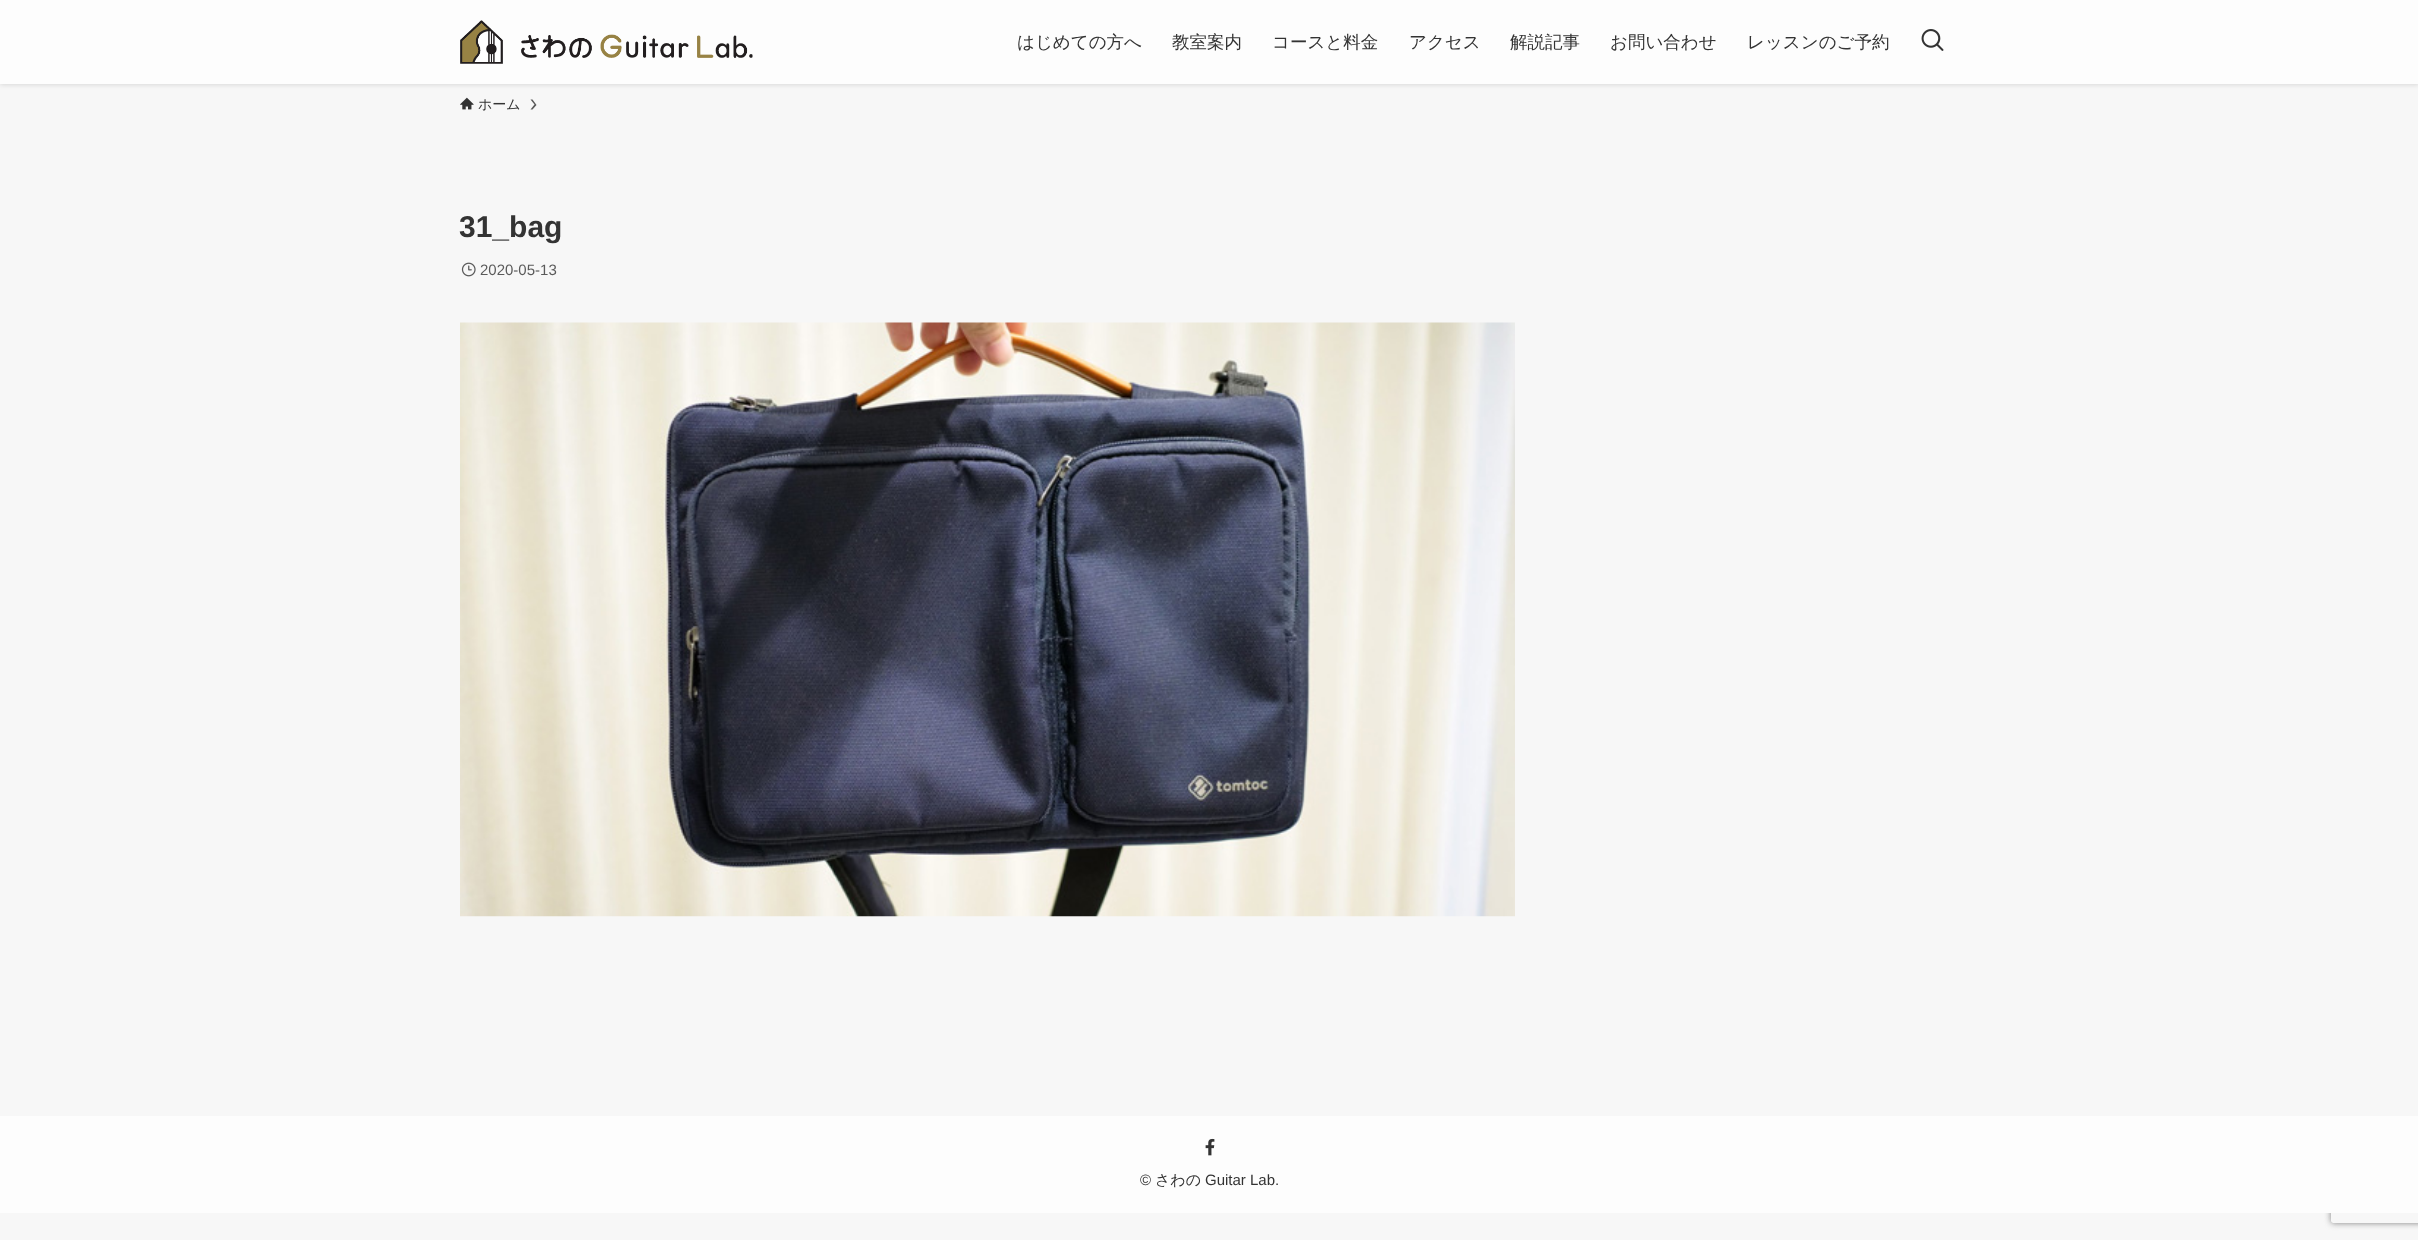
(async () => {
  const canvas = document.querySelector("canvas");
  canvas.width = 2418;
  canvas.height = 1240;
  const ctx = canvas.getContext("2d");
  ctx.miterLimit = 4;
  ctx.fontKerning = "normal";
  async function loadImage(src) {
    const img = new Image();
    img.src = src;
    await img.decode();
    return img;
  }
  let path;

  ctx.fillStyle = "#f7f7f7";
  ctx.fillRect(0, 0, 2418, 1240);
  ctx.fillStyle = "rgba(0, 0, 0, 0.12)";
  ctx.filter = "blur(2.5px)";
  ctx.beginPath();
  ctx.rect(0, 1, 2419, 84);
  ctx.fill();
  ctx.filter = "none";
  ctx.fillStyle = "#fdfdfd";
  ctx.fillRect(0, 0, 2418, 84);
  ctx.drawImage(await loadImage("img/1.png"), 460, 20, 293, 44);
  ctx.drawImage(await loadImage("img/2.png"), 1921, 29, 23, 22);
  ctx.drawImage(await loadImage("img/3.png"), 460, 97, 14, 13);
  ctx.fillStyle = "#5a5a5a";
  path = new Path2D("M532.5 99.5H530.5L534.5 104.5L530.5 109.5H532.5L536.5 105Z");
  ctx.fill(path);
  ctx.drawImage(await loadImage("img/4.png"), 461, 262, 15, 15);
  ctx.drawImage(await loadImage("img/5.png"), 460, 322, 1055, 595);
  ctx.save();
  path = new Path2D("M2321 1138H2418V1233H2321ZM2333.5 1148H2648.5C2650 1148 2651 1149 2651 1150.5V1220.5C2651 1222 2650 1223 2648.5 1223H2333.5C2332 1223 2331 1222 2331 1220.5V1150.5C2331 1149 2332 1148 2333.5 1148Z");
  ctx.clip(path, "evenodd");
  ctx.fillStyle = "#808080";
  ctx.filter = "blur(3px)";
  ctx.beginPath();
  ctx.roundRect(2331, 1148, 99, 75, 2.5);
  ctx.fill();
  ctx.filter = "none";
  ctx.restore();
  ctx.fillStyle = "#fdfdfd";
  ctx.fillRect(0, 1116, 2418, 97);
  ctx.drawImage(await loadImage("img/6.png"), 1205, 1138, 10, 18);
  ctx.font = "500 17.5px WenQuanYi Zen Hei";
  ctx.fillStyle = "#333333";
  for (const [text, x, y] of [
    ["はじめての方へ", 1017, 48],
    ["教室案内", 1172, 48],
    ["コースと料金", 1272, 48],
    ["アクセス", 1409, 48],
    ["解説記事", 1510, 48],
    ["お問い合わせ", 1610, 48],
    ["レッスンのご予約", 1747, 48],
  ]) {
    ctx.fillText(text, x, y);
  }
  ctx.font = "500 14px WenQuanYi Zen Hei";
  ctx.fillText("ホーム", 478, 109);
  ctx.font = "bold 30px Liberation Sans";
  ctx.fillText("31_bag", 459, 237);
  ctx.font = "15px Liberation Sans";
  ctx.fillStyle = "#5a5a5a";
  ctx.fillText("2020-05-13", 480, 275);
  ctx.fillStyle = "#333333";
  ctx.fillText("©", 1140, 1185);
  ctx.font = "500 15px WenQuanYi Zen Hei";
  ctx.fillText("さわの", 1155, 1185);
  ctx.font = "15px Liberation Sans";
  ctx.fillText("Guitar Lab.", 1205, 1185);
})();
